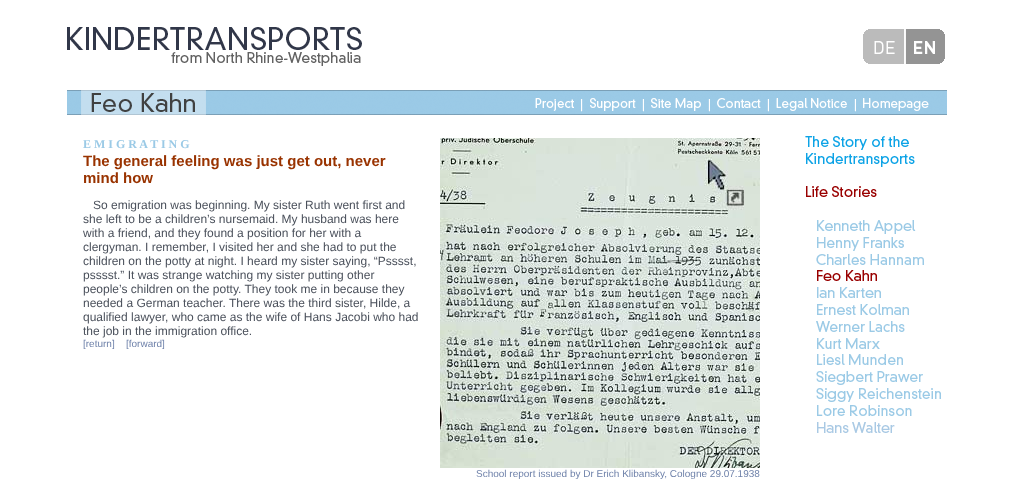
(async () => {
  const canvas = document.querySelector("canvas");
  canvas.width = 1012;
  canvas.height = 489;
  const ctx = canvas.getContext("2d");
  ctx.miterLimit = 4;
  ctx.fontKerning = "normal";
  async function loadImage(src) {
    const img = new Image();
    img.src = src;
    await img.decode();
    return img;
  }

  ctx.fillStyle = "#ffffff";
  ctx.fillRect(0, 0, 1012, 489);
  ctx.drawImage(await loadImage("img/1.png"), 67, 27, 878, 39);
  ctx.drawImage(await loadImage("img/2.png"), 67, 90, 880, 25);
  ctx.drawImage(await loadImage("img/3.png"), 805, 136, 136, 297);
  ctx.drawImage(await loadImage("img/4.png"), 440, 138, 320, 330);
  ctx.font = "bold 12px Liberation Serif";
  ctx.fillStyle = "#9bcae6";
  ctx.fillText("E M I G R A T I N G", 83, 148);
  ctx.font = "bold 15px Liberation Sans";
  ctx.fillStyle = "#993300";
  ctx.fillText("The general feeling was just get out, never", 83, 166);
  ctx.fillText("mind how", 83, 183);
  ctx.font = "12px Liberation Sans";
  ctx.fillStyle = "#4a505b";
  for (const [text, x, y] of [
    ["So emigration was beginning. My sister Ruth went first and", 93, 209],
    ["she left to be a children’s nursemaid. My husband was here", 83, 223],
    ["with a friend, and they found a position for her with a", 83, 237],
    ["clergyman. I remember, I visited her and she had to put the", 83, 251],
    ["children on the potty at night. I heard my sister saying, “Psssst,", 83, 265],
    ["psssst.” It was strange watching my sister putting other", 83, 279],
    ["people’s children on the potty. They took me in because they", 83, 293],
    ["needed a German teacher. There was the third sister, Hilde, a", 83, 307],
    ["qualified lawyer, who came as the wife of Hans Jacobi who had", 83, 321],
    ["the job in the immigration office.", 83, 335],
  ]) {
    ctx.fillText(text, x, y);
  }
  ctx.font = "10px Liberation Sans";
  ctx.fillStyle = "#6f82aa";
  for (const [text, x, y] of [
    ["[return]", 83, 347],
    ["[forward]", 126, 347],
    ["School report issued by Dr Erich Klibansky, Cologne 29.07.1938", 476, 477],
  ]) {
    ctx.fillText(text, x, y);
  }
})();
